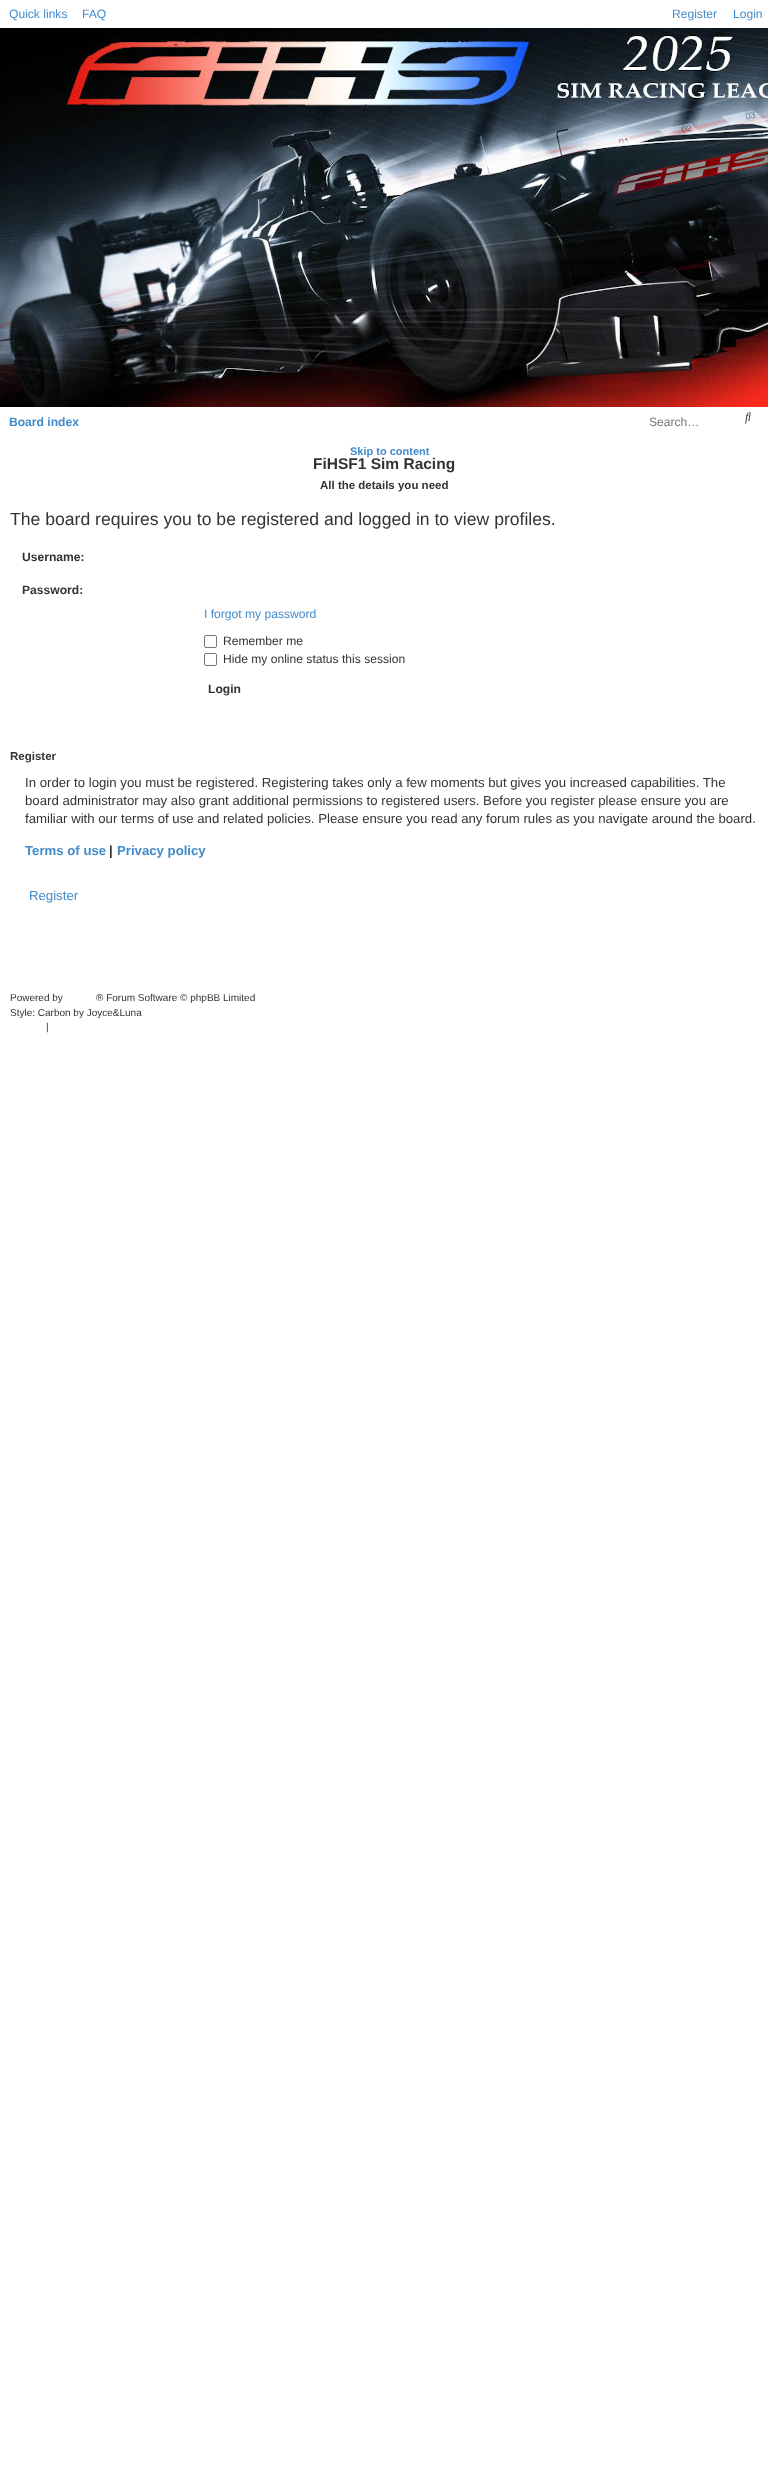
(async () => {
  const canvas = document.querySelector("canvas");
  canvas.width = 768;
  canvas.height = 2470;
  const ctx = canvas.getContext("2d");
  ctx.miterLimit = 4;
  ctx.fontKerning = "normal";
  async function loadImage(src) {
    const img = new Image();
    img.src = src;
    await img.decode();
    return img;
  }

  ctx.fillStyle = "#ffffff";
  ctx.fillRect(0, 0, 768, 2470);
  ctx.drawImage(await loadImage("img/1.png"), 0, 28, 768, 379);
  ctx.drawImage(await loadImage("img/2.png"), 745, 412, 6, 12);
  ctx.beginPath();
  ctx.roundRect(204.5, 635.5, 12, 12, 1.5);
  ctx.strokeStyle = "#767676";
  ctx.stroke();
  ctx.beginPath();
  ctx.roundRect(204.5, 653.5, 12, 12, 1.5);
  ctx.stroke();
  ctx.font = "12.1px Liberation Sans";
  ctx.fillStyle = "#428bca";
  for (const [text, x, y] of [
    ["Quick links", 9, 18],
    ["FAQ", 82, 18],
    ["Register", 672, 18],
    ["Login", 733, 18],
  ]) {
    ctx.fillText(text, x, y);
  }
  ctx.font = "bold 12.1px Liberation Sans";
  ctx.fillText("Board index", 9, 426);
  ctx.font = "12.1px Liberation Sans";
  ctx.fillStyle = "#757575";
  ctx.fillText("Search…", 649, 426);
  ctx.font = "bold 11px Liberation Sans";
  ctx.fillStyle = "#428bca";
  ctx.fillText("Skip to content", 350, 455);
  ctx.font = "bold 15.5px Liberation Sans";
  ctx.fillStyle = "#333333";
  ctx.fillText("FiHSF1 Sim Racing", 313, 469);
  ctx.font = "bold 11.5px Liberation Sans";
  ctx.fillText("All the details you need", 320, 489);
  ctx.font = "17.6px Liberation Sans";
  ctx.fillText("The board requires you to be registered and logged in to view profiles.", 10, 525);
  ctx.font = "bold 12.1px Liberation Sans";
  ctx.fillText("Username:", 22, 561);
  ctx.fillText("Password:", 22, 594);
  ctx.font = "12.1px Liberation Sans";
  ctx.fillStyle = "#428bca";
  ctx.fillText("I forgot my password", 204, 618);
  ctx.fillStyle = "#333333";
  ctx.fillText("Remember me", 223, 645);
  ctx.fillText("Hide my online status this session", 223, 663);
  ctx.font = "bold 12.1px Liberation Sans";
  ctx.fillText("Login", 208, 693);
  ctx.font = "bold 11.5px Liberation Sans";
  ctx.fillText("Register", 10, 760);
  ctx.font = "13.2px Liberation Sans";
  for (const [text, x, y] of [
    ["In order to login you must be registered. Registering takes only a few moments but gives you increased capabilities. The", 25, 787],
    ["board administrator may also grant additional permissions to registered users. Before you register please ensure you are", 25, 805],
    ["familiar with our terms of use and related policies. Please ensure you read any forum rules as you navigate around the board.", 25, 823],
  ]) {
    ctx.fillText(text, x, y);
  }
  ctx.font = "bold 13.2px Liberation Sans";
  ctx.fillStyle = "#428bca";
  ctx.fillText("Terms of use", 25, 855);
  ctx.fillStyle = "#333333";
  ctx.fillText("|", 109, 855);
  ctx.fillStyle = "#428bca";
  ctx.fillText("Privacy policy", 117, 855);
  ctx.font = "13.2px Liberation Sans";
  ctx.fillText("Register", 29, 900);
  ctx.font = "10px Liberation Sans";
  ctx.fillStyle = "#333333";
  for (const [text, x, y] of [
    ["Powered by", 10, 1001],
    ["® Forum Software © phpBB Limited", 96, 1001],
    ["Style: Carbon by Joyce&Luna", 10, 1016],
    ["|", 46, 1030],
  ]) {
    ctx.fillText(text, x, y);
  }
})();
